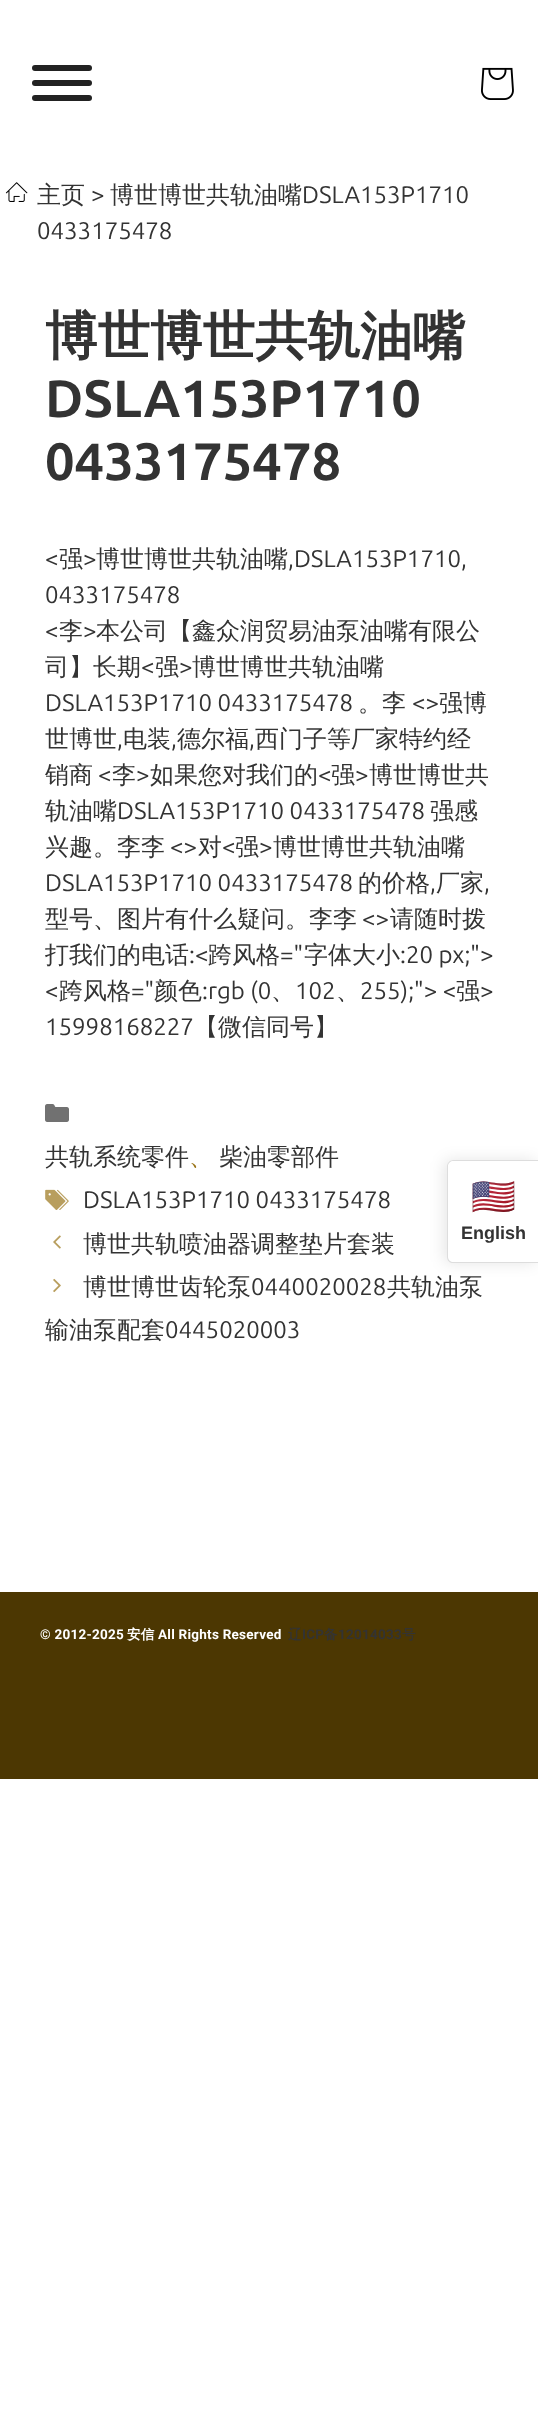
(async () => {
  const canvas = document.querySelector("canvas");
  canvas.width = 538;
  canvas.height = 2424;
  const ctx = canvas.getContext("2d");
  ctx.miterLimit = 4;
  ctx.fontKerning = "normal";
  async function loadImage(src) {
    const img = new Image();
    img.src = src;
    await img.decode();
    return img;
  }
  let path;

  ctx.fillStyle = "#ffffff";
  ctx.fillRect(0, 0, 538, 2424);
  ctx.fillStyle = "#222222";
  ctx.beginPath();
  ctx.roundRect(32, 65, 60, 6, 3);
  ctx.fill();
  ctx.beginPath();
  ctx.roundRect(32, 80, 60, 6, 3);
  ctx.fill();
  ctx.beginPath();
  ctx.roundRect(32, 95, 60, 6, 3);
  ctx.fill();
  ctx.drawImage(await loadImage("img/1.png"), 481, 67, 33, 33);
  ctx.drawImage(await loadImage("img/2.png"), 5, 182, 23, 20);
  ctx.drawImage(await loadImage("img/3.png"), 45, 1104, 24, 18);
  ctx.drawImage(await loadImage("img/4.png"), 45, 1189, 24, 21);
  ctx.drawImage(await loadImage("img/5.png"), 53, 1235, 8, 14);
  ctx.drawImage(await loadImage("img/6.png"), 53, 1278, 8, 15);
  ctx.fillStyle = "rgba(0, 0, 0, 0.1)";
  ctx.filter = "blur(7.5px)";
  ctx.beginPath();
  ctx.roundRect(444, 1160, 92, 103, 6);
  ctx.fill();
  ctx.filter = "none";
  ctx.fillStyle = "#ffffff";
  path = new Path2D("M453 1160H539V1263H453C449.5 1263 447 1260.5 447 1257V1166C447 1162.5 449.5 1160 453 1160Z");
  ctx.fill(path);
  ctx.fillStyle = "#dddddd";
  path = new Path2D("M453 1160H538V1263H453C450 1263 447 1261 447 1257V1166C447 1163 450 1160 453 1160ZM453 1161H538V1262H453C451 1262 448 1260 448 1257V1166C448 1163 451 1161 453 1161Z");
  ctx.fill(path, "evenodd");
  ctx.fillStyle = "#4c3702";
  ctx.fillRect(0, 1592, 538, 187);
  ctx.font = "500 24px WenQuanYi Zen Hei";
  ctx.fillStyle = "#333333";
  ctx.fillText("主页", 37, 203);
  ctx.font = "24px Ubuntu";
  ctx.fillText(">", 91, 203);
  ctx.font = "500 24px WenQuanYi Zen Hei";
  ctx.fillText("博世博世共轨油嘴", 110, 203);
  ctx.font = "24px Ubuntu";
  ctx.fillText("DSLA153P1710", 302, 203);
  ctx.fillText("0433175478", 37, 239);
  ctx.font = "bold 52.5px WenQuanYi Zen Hei";
  ctx.fillText("博世博世共轨油嘴", 45, 354);
  ctx.font = "bold 52.5px Ubuntu";
  ctx.fillText("DSLA153P1710", 45, 417);
  ctx.fillText("0433175478", 45, 480);
  ctx.font = "24px Ubuntu";
  ctx.fillText("<", 45, 567);
  ctx.font = "500 24px WenQuanYi Zen Hei";
  ctx.fillText("强", 59, 567);
  ctx.font = "24px Ubuntu";
  ctx.fillText(">", 83, 567);
  ctx.font = "500 24px WenQuanYi Zen Hei";
  ctx.fillText("博世博世共轨油嘴", 96, 567);
  ctx.font = "24px Ubuntu";
  for (const [text, x, y] of [
    [",DSLA153P1710,", 288, 567],
    ["0433175478", 45, 603],
    ["<", 45, 639],
  ]) {
    ctx.fillText(text, x, y);
  }
  ctx.font = "500 24px WenQuanYi Zen Hei";
  ctx.fillText("李", 59, 639);
  ctx.font = "24px Ubuntu";
  ctx.fillText(">", 83, 639);
  ctx.font = "500 24px WenQuanYi Zen Hei";
  ctx.fillText("本公司【鑫众润贸易油泵油嘴有限公", 96, 639);
  ctx.fillText("司】长期", 45, 675);
  ctx.font = "24px Ubuntu";
  ctx.fillText("<", 141, 675);
  ctx.font = "500 24px WenQuanYi Zen Hei";
  ctx.fillText("强", 155, 675);
  ctx.font = "24px Ubuntu";
  ctx.fillText(">", 179, 675);
  ctx.font = "500 24px WenQuanYi Zen Hei";
  ctx.fillText("博世博世共轨油嘴", 192, 675);
  ctx.font = "24px Ubuntu";
  ctx.fillText("DSLA153P1710 0433175478", 45, 711);
  ctx.font = "500 24px WenQuanYi Zen Hei";
  ctx.fillText("。李", 358, 711);
  ctx.font = "24px Ubuntu";
  ctx.fillText("<>", 412, 711);
  ctx.font = "500 24px WenQuanYi Zen Hei";
  ctx.fillText("强博", 439, 711);
  ctx.fillText("世博世", 45, 747);
  ctx.font = "24px Ubuntu";
  ctx.fillText(",", 117, 747);
  ctx.font = "500 24px WenQuanYi Zen Hei";
  ctx.fillText("电装", 123, 747);
  ctx.font = "24px Ubuntu";
  ctx.fillText(",", 171, 747);
  ctx.font = "500 24px WenQuanYi Zen Hei";
  ctx.fillText("德尔福", 177, 747);
  ctx.font = "24px Ubuntu";
  ctx.fillText(",", 249, 747);
  ctx.font = "500 24px WenQuanYi Zen Hei";
  ctx.fillText("西门子等厂家特约经", 255, 747);
  ctx.fillText("销商", 45, 783);
  ctx.font = "24px Ubuntu";
  ctx.fillText("<", 98, 783);
  ctx.font = "500 24px WenQuanYi Zen Hei";
  ctx.fillText("李", 112, 783);
  ctx.font = "24px Ubuntu";
  ctx.fillText(">", 136, 783);
  ctx.font = "500 24px WenQuanYi Zen Hei";
  ctx.fillText("如果您对我们的", 150, 783);
  ctx.font = "24px Ubuntu";
  ctx.fillText("<", 318, 783);
  ctx.font = "500 24px WenQuanYi Zen Hei";
  ctx.fillText("强", 331, 783);
  ctx.font = "24px Ubuntu";
  ctx.fillText(">", 355, 783);
  ctx.font = "500 24px WenQuanYi Zen Hei";
  ctx.fillText("博世博世共", 369, 783);
  ctx.fillText("轨油嘴", 45, 819);
  ctx.font = "24px Ubuntu";
  ctx.fillText("DSLA153P1710 0433175478", 117, 819);
  ctx.font = "500 24px WenQuanYi Zen Hei";
  ctx.fillText("强感", 430, 819);
  ctx.fillText("兴趣。李李", 45, 855);
  ctx.font = "24px Ubuntu";
  ctx.fillText("<>", 170, 855);
  ctx.font = "500 24px WenQuanYi Zen Hei";
  ctx.fillText("对", 198, 855);
  ctx.font = "24px Ubuntu";
  ctx.fillText("<", 222, 855);
  ctx.font = "500 24px WenQuanYi Zen Hei";
  ctx.fillText("强", 235, 855);
  ctx.font = "24px Ubuntu";
  ctx.fillText(">", 259, 855);
  ctx.font = "500 24px WenQuanYi Zen Hei";
  ctx.fillText("博世博世共轨油嘴", 273, 855);
  ctx.font = "24px Ubuntu";
  ctx.fillText("DSLA153P1710 0433175478", 45, 891);
  ctx.font = "500 24px WenQuanYi Zen Hei";
  ctx.fillText("的价格", 358, 891);
  ctx.font = "24px Ubuntu";
  ctx.fillText(",", 430, 891);
  ctx.font = "500 24px WenQuanYi Zen Hei";
  ctx.fillText("厂家", 436, 891);
  ctx.font = "24px Ubuntu";
  ctx.fillText(",", 484, 891);
  ctx.font = "500 24px WenQuanYi Zen Hei";
  ctx.fillText("型号、图片有什么疑问。李李", 45, 927);
  ctx.font = "24px Ubuntu";
  ctx.fillText("<>", 362, 927);
  ctx.font = "500 24px WenQuanYi Zen Hei";
  ctx.fillText("请随时拨", 390, 927);
  ctx.fillText("打我们的电话", 45, 963);
  ctx.font = "24px Ubuntu";
  ctx.fillText(":<", 189, 963);
  ctx.font = "500 24px WenQuanYi Zen Hei";
  ctx.fillText("跨风格", 208, 963);
  ctx.font = "24px Ubuntu";
  ctx.fillText("=\"", 280, 963);
  ctx.font = "500 24px WenQuanYi Zen Hei";
  ctx.fillText("字体大小", 304, 963);
  ctx.font = "24px Ubuntu";
  ctx.fillText(":20 px;\">", 400, 963);
  ctx.fillText("<", 45, 999);
  ctx.font = "500 24px WenQuanYi Zen Hei";
  ctx.fillText("跨风格", 59, 999);
  ctx.font = "24px Ubuntu";
  ctx.fillText("=\"", 131, 999);
  ctx.font = "500 24px WenQuanYi Zen Hei";
  ctx.fillText("颜色", 154, 999);
  ctx.font = "24px Ubuntu";
  for (const [text, x, y] of [
    [":rgb (0", 202, 999],
    ["102", 295, 999],
    ["255);\"> <", 360, 999],
  ]) {
    ctx.fillText(text, x, y);
  }
  ctx.font = "500 24px WenQuanYi Zen Hei";
  ctx.fillText("强", 456, 999);
  ctx.font = "24px Ubuntu";
  ctx.fillText(">", 480, 999);
  ctx.font = "500 24px WenQuanYi Zen Hei";
  ctx.fillText("、", 271, 999);
  ctx.fillText("、", 336, 999);
  ctx.font = "24px Ubuntu";
  ctx.fillText("15998168227", 45, 1035);
  ctx.font = "500 24px WenQuanYi Zen Hei";
  ctx.fillText("【微信同号】", 194, 1035);
  ctx.fillText("共轨系统零件", 45, 1165);
  ctx.fillStyle = "#9a7418";
  ctx.fillText("、", 189, 1165);
  ctx.fillStyle = "#333333";
  ctx.fillText("柴油零部件", 219, 1165);
  ctx.font = "24px Ubuntu";
  ctx.fillText("DSLA153P1710 0433175478", 83, 1208);
  ctx.font = "500 24px WenQuanYi Zen Hei";
  ctx.fillText("博世共轨喷油器调整垫片套装", 83, 1252);
  ctx.fillText("博世博世齿轮泵", 83, 1295);
  ctx.font = "24px Ubuntu";
  ctx.fillText("0440020028", 251, 1295);
  ctx.font = "500 24px WenQuanYi Zen Hei";
  ctx.fillText("共轨油泵", 387, 1295);
  ctx.fillText("输油泵配套", 45, 1338);
  ctx.font = "24px Ubuntu";
  ctx.fillText("0445020003", 165, 1338);
  ctx.font = "36px Noto Color Emoji";
  ctx.fillText("🇺🇸", 471, 1209);
  ctx.font = "bold 18px Liberation Sans";
  ctx.fillText("English", 461, 1239);
  ctx.letterSpacing = "0.25px";
  ctx.font = "bold 13.5px Roboto";
  ctx.fillStyle = "#ffffff";
  ctx.fillText("© 2012-2025", 40, 1639);
  ctx.font = "bold 13.5px WenQuanYi Zen Hei";
  ctx.fillText("安信", 127, 1639);
  ctx.font = "bold 13.5px Roboto";
  ctx.fillText("All Rights Reserved", 158, 1639);
  ctx.font = "bold 13.5px WenQuanYi Zen Hei";
  ctx.fillStyle = "#333333";
  ctx.fillText("辽", 288, 1639);
  ctx.font = "bold 13.5px Roboto";
  ctx.fillText("ICP", 302, 1639);
  ctx.font = "bold 13.5px WenQuanYi Zen Hei";
  ctx.fillText("备", 324, 1639);
  ctx.font = "bold 13.5px Roboto";
  ctx.fillText("12014033", 338, 1639);
  ctx.font = "bold 13.5px WenQuanYi Zen Hei";
  ctx.fillText("号", 402, 1639);
})();
